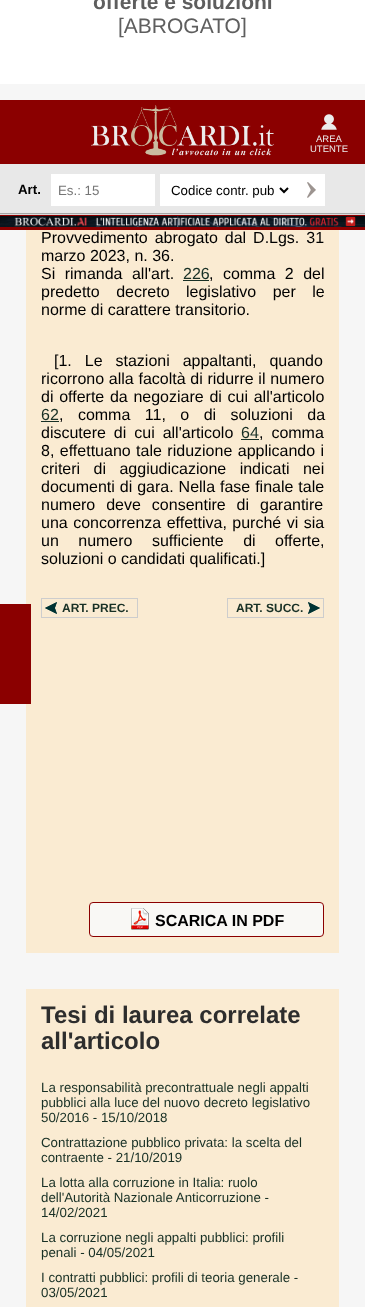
(async () => {
  const canvas = document.querySelector("canvas");
  canvas.width = 365;
  canvas.height = 1307;
  const ctx = canvas.getContext("2d");
  ctx.miterLimit = 4;
  ctx.fontKerning = "normal";
  async function loadImage(src) {
    const img = new Image();
    img.src = src;
    await img.decode();
    return img;
  }
  let path;

  ctx.fillStyle = "#f6f6f6";
  ctx.fillRect(0, 0, 365, 1307);
  for (const [x, y, w, h, color] of [
    [26, 230, 313, 723, "#faebd2"],
    [0, 604, 31, 100, "#8b0000"],
    [0, 0, 365, 84, "#ffffff"],
    [183, 280, 26, 1, "#183025"],
    [41, 421, 18, 1, "#183025"],
    [241, 439, 18, 1, "#183025"],
  ]) {
    ctx.fillStyle = color;
    ctx.fillRect(x, y, w, h);
  }
  ctx.drawImage(await loadImage("img/1.png"), 45, 602, 12, 12);
  ctx.strokeStyle = "#cdcdcd";
  ctx.strokeRect(41.5, 598.5, 96, 19);
  ctx.drawImage(await loadImage("img/2.png"), 308, 602, 12, 12);
  ctx.strokeRect(227.5, 598.5, 96, 19);
  ctx.fillStyle = "#f9f8f5";
  ctx.beginPath();
  ctx.roundRect(89.5, 902.5, 234, 34, 3.5);
  ctx.fill();
  ctx.strokeStyle = "#8b0000";
  ctx.stroke();
  ctx.drawImage(await loadImage("img/3.png"), 131, 908, 18, 22);
  ctx.fillStyle = "#faebd2";
  ctx.fillRect(26, 989, 313, 318);
  ctx.fillStyle = "#8b0000";
  ctx.fillRect(0, 100, 365, 130);
  ctx.drawImage(await loadImage("img/4.png"), 91, 105, 183, 51);
  ctx.drawImage(await loadImage("img/5.png"), 321, 114, 16, 16);
  for (const [x, y, w, h, color] of [
    [0, 164, 365, 49, "#e8e8e8"],
    [51, 174, 104, 32, "#ffffff"],
    [160, 174, 165, 32, "#ffffff"],
  ]) {
    ctx.fillStyle = color;
    ctx.fillRect(x, y, w, h);
  }
  path = new Path2D("M280 188L284 192L288 188");
  ctx.strokeStyle = "#000000";
  ctx.lineWidth = 2;
  ctx.stroke(path);
  ctx.drawImage(await loadImage("img/6.png"), 307, 182, 9, 16);
  ctx.fillStyle = "#a6a6a6";
  ctx.fillRect(0, 213, 365, 1);
  ctx.fillStyle = "#dadada";
  ctx.fillRect(0, 214, 365, 1);
  ctx.drawImage(await loadImage("img/7.png"), 0, 216, 365, 11);
  ctx.font = "bold 21px Liberation Sans";
  ctx.fillStyle = "#5e5e5e";
  ctx.fillText("offerte e soluzioni", 93, 9);
  ctx.font = "21px Liberation Sans";
  ctx.fillText("[ABROGATO]", 118, 33);
  ctx.wordSpacing = "2.5px";
  ctx.font = "16px Liberation Sans";
  ctx.fillStyle = "#000000";
  ctx.fillText("Provvedimento abrogato dal D.Lgs. 31", 41, 243);
  ctx.wordSpacing = "0px";
  ctx.fillText("marzo 2023, n. 36.", 41, 261);
  ctx.wordSpacing = "5px";
  ctx.fillText("Si rimanda all'art.", 41, 279);
  ctx.wordSpacing = "0px";
  ctx.fillStyle = "#183025";
  ctx.fillText("226", 183, 279);
  ctx.wordSpacing = "5px";
  ctx.fillStyle = "#000000";
  ctx.fillText(", comma 2 del", 209, 279);
  ctx.wordSpacing = "12px";
  ctx.fillText("predetto decreto legislativo per le", 41, 297);
  ctx.wordSpacing = "0px";
  ctx.fillText("norme di carattere transitorio.", 41, 315);
  ctx.wordSpacing = "8.5px";
  ctx.fillText("[1. Le stazioni appaltanti, quando", 54, 366);
  ctx.wordSpacing = "0.25px";
  ctx.fillText("ricorrono alla facoltà di ridurre il numero", 41, 384);
  ctx.wordSpacing = "1.25px";
  ctx.fillText("di offerte da negoziare di cui all'articolo", 41, 402);
  ctx.wordSpacing = "0px";
  ctx.fillStyle = "#183025";
  ctx.fillText("62", 41, 420);
  ctx.wordSpacing = "10px";
  ctx.fillStyle = "#000000";
  ctx.fillText(", comma 11, o di soluzioni da", 59, 420);
  ctx.wordSpacing = "3.5px";
  ctx.fillText("discutere di cui all'articolo", 41, 438);
  ctx.wordSpacing = "0px";
  ctx.fillStyle = "#183025";
  ctx.fillText("64", 241, 438);
  ctx.wordSpacing = "3.5px";
  ctx.fillStyle = "#000000";
  ctx.fillText(", comma", 259, 438);
  ctx.wordSpacing = "1px";
  ctx.fillText("8, effettuano tale riduzione applicando i", 41, 456);
  ctx.wordSpacing = "9px";
  ctx.fillText("criteri di aggiudicazione indicati nei", 41, 474);
  ctx.wordSpacing = "0.5px";
  ctx.fillText("documenti di gara. Nella fase finale tale", 41, 492);
  ctx.wordSpacing = "6.5px";
  ctx.fillText("numero deve consentire di garantire", 41, 510);
  ctx.wordSpacing = "1px";
  ctx.fillText("una concorrenza effettiva, purché vi sia", 41, 528);
  ctx.wordSpacing = "15px";
  ctx.fillText("un numero sufficiente di offerte,", 41, 546);
  ctx.wordSpacing = "0px";
  ctx.fillText("soluzioni o candidati qualificati.]", 41, 564);
  ctx.font = "bold 12px Liberation Sans";
  ctx.fillStyle = "#183025";
  ctx.fillText("ART. PREC.", 62, 612);
  ctx.fillText("ART. SUCC.", 236, 612);
  ctx.font = "bold 16px Liberation Sans";
  ctx.fillStyle = "#000000";
  ctx.fillText("SCARICA IN PDF", 155, 926);
  ctx.font = "bold 24px Liberation Sans";
  ctx.fillStyle = "#2d2d2d";
  ctx.fillText("Tesi di laurea correlate", 41, 1023);
  ctx.fillText("all'articolo", 41, 1049);
  ctx.font = "13.3px Liberation Sans";
  ctx.fillStyle = "#183025";
  for (const [text, x, y] of [
    ["La responsabilità precontrattuale negli appalti", 41, 1092],
    ["pubblici alla luce del nuovo decreto legislativo", 41, 1107],
    ["50/2016 - 15/10/2018", 41, 1122],
    ["Contrattazione pubblico privata: la scelta del", 41, 1147],
    ["contraente - 21/10/2019", 41, 1162],
    ["La lotta alla corruzione in Italia: ruolo", 41, 1187],
    ["dell'Autorità Nazionale Anticorruzione -", 41, 1202],
    ["14/02/2021", 41, 1217],
    ["La corruzione negli appalti pubblici: profili", 41, 1242],
    ["penali - 04/05/2021", 41, 1257],
    ["I contratti pubblici: profili di teoria generale -", 41, 1282],
    ["03/05/2021", 41, 1297],
  ]) {
    ctx.fillText(text, x, y);
  }
  ctx.font = "9.5px Liberation Sans";
  ctx.fillStyle = "#ececec";
  ctx.fillText("AREA", 316, 142);
  ctx.fillText("UTENTE", 310, 152);
  ctx.font = "bold 13.3px Liberation Sans";
  ctx.fillStyle = "#000000";
  ctx.fillText("Art.", 18, 194);
  ctx.font = "13.3px Liberation Sans";
  ctx.fillStyle = "#757575";
  ctx.fillText("Es.: 15", 58, 195);
  ctx.fillStyle = "#000000";
  ctx.fillText("Codice contr. pub", 171, 195);
})();
